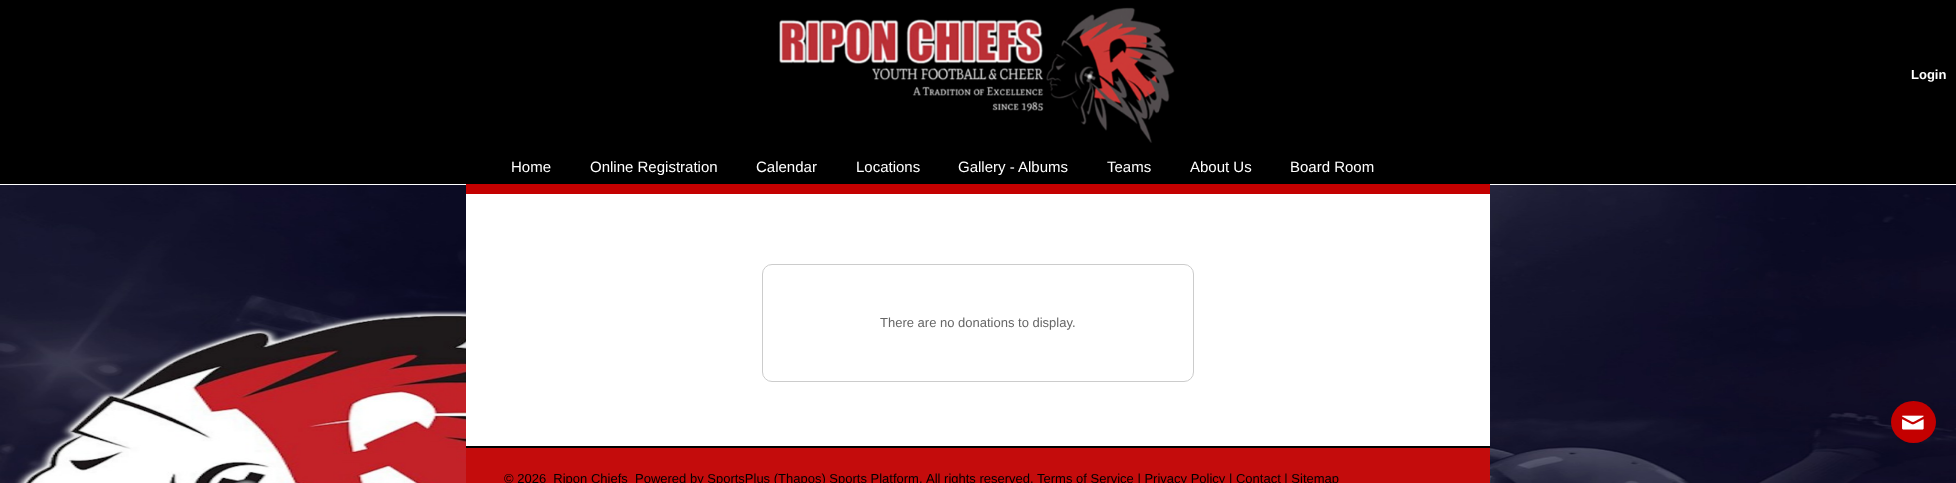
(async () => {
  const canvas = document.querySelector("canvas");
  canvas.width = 1956;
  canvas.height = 483;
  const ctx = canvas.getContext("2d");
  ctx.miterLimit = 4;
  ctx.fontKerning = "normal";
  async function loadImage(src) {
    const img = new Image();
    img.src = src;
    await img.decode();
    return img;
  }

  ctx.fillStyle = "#ffffff";
  ctx.fillRect(0, 0, 1956, 483);
  ctx.fillStyle = "#000000";
  ctx.fillRect(0, 0, 1956, 184);
  ctx.drawImage(await loadImage("img/1.png"), 779, 7, 396, 136);
  ctx.drawImage(await loadImage("img/2.png"), 0, 185, 1956, 298);
  ctx.fillStyle = "#ffffff";
  ctx.fillRect(466, 194, 1024, 252);
  ctx.fillStyle = "#c40000";
  ctx.fillRect(466, 184, 1024, 10);
  ctx.beginPath();
  ctx.roundRect(762.5, 264.5, 431, 117, 9.5);
  ctx.strokeStyle = "#cccccc";
  ctx.stroke();
  ctx.beginPath();
  ctx.ellipse(1913.5, 422, 22.5, 21, 0, 0, Math.PI * 2);
  ctx.fill();
  ctx.drawImage(await loadImage("img/3.png"), 1902, 415, 22, 15);
  ctx.fillStyle = "#c40c0c";
  ctx.fillRect(466, 448, 1024, 35);
  ctx.fillStyle = "#000000";
  ctx.fillRect(466, 446, 1024, 2);
  ctx.font = "bold 13px Liberation Sans";
  ctx.fillStyle = "#ffffff";
  ctx.fillText("Login", 1911, 79);
  ctx.font = "15px Liberation Sans";
  for (const [text, x, y] of [
    ["Home", 511, 172],
    ["Online Registration", 590, 172],
    ["Calendar", 756, 172],
    ["Locations", 856, 172],
    ["Gallery - Albums", 958, 172],
    ["Teams", 1107, 172],
    ["About Us", 1190, 172],
    ["Board Room", 1290, 172],
  ]) {
    ctx.fillText(text, x, y);
  }
  ctx.font = "13px Liberation Sans";
  ctx.fillStyle = "#666666";
  ctx.fillText("There are no donations to display.", 880, 327);
  ctx.fillStyle = "#000000";
  ctx.fillText("© 2026  Ripon Chiefs  Powered by SportsPlus (Thapos) Sports Platform.", 504, 483);
  ctx.fillText("All rights reserved. Terms of Service | Privacy Policy | Contact | Sitemap", 926, 483);
})();
